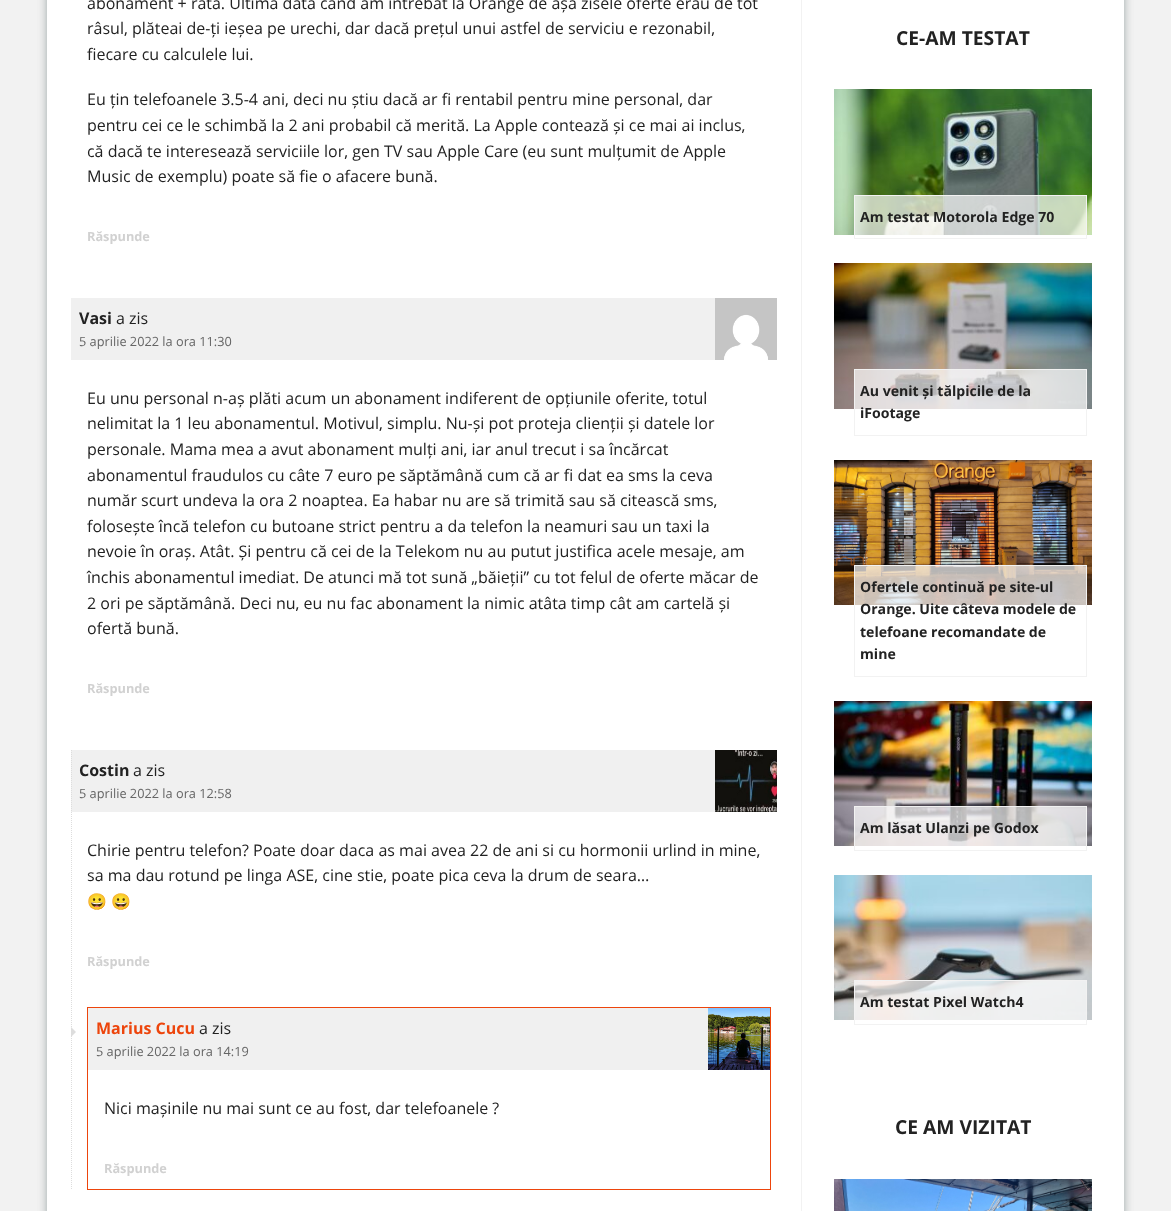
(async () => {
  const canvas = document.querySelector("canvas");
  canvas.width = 1171;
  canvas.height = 1211;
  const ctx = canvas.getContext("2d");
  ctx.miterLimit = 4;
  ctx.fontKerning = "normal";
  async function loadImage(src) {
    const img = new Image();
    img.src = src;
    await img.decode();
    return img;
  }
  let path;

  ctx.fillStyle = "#f2f2f2";
  ctx.fillRect(0, 0, 1171, 1211);
  ctx.fillStyle = "rgba(128, 141, 142, 0.75)";
  ctx.filter = "blur(5px)";
  ctx.beginPath();
  ctx.rect(47, -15, 1077, 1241);
  ctx.fill();
  ctx.filter = "none";
  ctx.fillStyle = "#ffffff";
  ctx.fillRect(47, 0, 1077, 1211);
  ctx.fillStyle = "#f0f0f0";
  ctx.fillRect(71, 298, 644, 62);
  ctx.drawImage(await loadImage("img/1.png"), 715, 298, 62, 62);
  ctx.fillRect(71, 750, 644, 62);
  ctx.drawImage(await loadImage("img/2.png"), 715, 750, 62, 62);
  path = new Path2D("M71.5 750V1190");
  ctx.strokeStyle = "#dddddd";
  ctx.setLineDash([1, 1]);
  ctx.stroke(path);
  ctx.fillStyle = "#dddddd";
  path = new Path2D("M71 1037V1027L76 1032Z");
  ctx.fill(path);
  ctx.strokeStyle = "#ed450c";
  ctx.setLineDash([]);
  ctx.strokeRect(87.5, 1007.5, 683, 182);
  ctx.fillStyle = "#f0f0f0";
  ctx.fillRect(88, 1008, 620, 62);
  ctx.drawImage(await loadImage("img/3.png"), 708, 1008, 62, 62);
  ctx.fillStyle = "#f2f2f2";
  ctx.fillRect(801, 0, 1, 1211);
  ctx.drawImage(await loadImage("img/4.png"), 834, 89, 258, 146);
  ctx.fillStyle = "rgba(255, 255, 255, 0.7)";
  ctx.fillRect(855, 196, 231, 39);
  ctx.strokeStyle = "#f2f2f2";
  ctx.strokeRect(854.5, 195.5, 232, 43);
  ctx.drawImage(await loadImage("img/5.png"), 834, 263, 258, 146);
  ctx.fillRect(855, 370, 231, 39);
  ctx.strokeRect(854.5, 369.5, 232, 66);
  ctx.drawImage(await loadImage("img/6.png"), 834, 460, 258, 145);
  ctx.fillRect(855, 566, 231, 39);
  ctx.strokeRect(854.5, 565.5, 232, 111);
  ctx.drawImage(await loadImage("img/7.png"), 834, 701, 258, 145);
  ctx.fillRect(855, 807, 231, 39);
  ctx.strokeRect(854.5, 806.5, 232, 44);
  ctx.drawImage(await loadImage("img/8.png"), 834, 875, 258, 145);
  ctx.fillRect(855, 981, 231, 39);
  ctx.strokeRect(854.5, 980.5, 232, 44);
  ctx.drawImage(await loadImage("img/9.png"), 834, 1179, 258, 32);
  ctx.font = "16px Open Sans";
  ctx.fillStyle = "#222222";
  for (const [text, x, y] of [
    ["abonament + rată. Ultima dată când am întrebat la Orange de așa zisele oferte erau de tot", 87, 9],
    ["râsul, plăteai de-ți ieșea pe urechi, dar dacă prețul unui astfel de serviciu e rezonabil,", 87, 34],
    ["fiecare cu calculele lui.", 87, 60],
    ["Eu țin telefoanele 3.5-4 ani, deci nu știu dacă ar fi rentabil pentru mine personal, dar", 87, 105],
    ["pentru cei ce le schimbă la 2 ani probabil că merită. La Apple contează și ce mai ai inclus,", 87, 131],
    ["că dacă te interesează serviciile lor, gen TV sau Apple Care (eu sunt mulțumit de Apple", 87, 157],
    ["Music de exemplu) poate să fie o afacere bună.", 87, 182],
  ]) {
    ctx.fillText(text, x, y);
  }
  ctx.font = "bold 12.75px Open Sans";
  ctx.fillStyle = "#d1d1d1";
  ctx.fillText("Răspunde", 87, 241);
  ctx.font = "bold 16px Open Sans";
  ctx.fillStyle = "#222222";
  ctx.fillText("Vasi", 79, 324);
  ctx.font = "16px Open Sans";
  ctx.fillText("a zis", 116, 324);
  ctx.font = "12.75px Open Sans";
  ctx.fillStyle = "#666666";
  ctx.fillText("5 aprilie 2022 la ora 11:30", 79, 346);
  ctx.font = "16px Open Sans";
  ctx.fillStyle = "#222222";
  for (const [text, x, y] of [
    ["Eu unu personal n-aș plăti acum un abonament indiferent de opțiunile oferite, totul", 87, 404],
    ["nelimitat la 1 leu abonamentul. Motivul, simplu. Nu-și pot proteja clienții și datele lor", 87, 429],
    ["personale. Mama mea a avut abonament mulți ani, iar anul trecut i sa încărcat", 87, 455],
    ["abonamentul fraudulos cu câte 7 euro pe săptămână cum că ar fi dat ea sms la ceva", 87, 481],
    ["număr scurt undeva la ora 2 noaptea. Ea habar nu are să trimită sau să citească sms,", 87, 506],
    ["folosește încă telefon cu butoane strict pentru a da telefon la neamuri sau un taxi la", 87, 532],
    ["nevoie în oraș. Atât. Și pentru că cei de la Telekom nu au putut justifica acele mesaje, am", 87, 557],
    ["închis abonamentul imediat. De atunci mă tot sună „băieții” cu tot felul de oferte măcar de", 87, 583],
    ["2 ori pe săptămână. Deci nu, eu nu fac abonament la nimic atâta timp cât am cartelă și", 87, 609],
    ["ofertă bună.", 87, 634],
  ]) {
    ctx.fillText(text, x, y);
  }
  ctx.font = "bold 12.75px Open Sans";
  ctx.fillStyle = "#d1d1d1";
  ctx.fillText("Răspunde", 87, 693);
  ctx.font = "bold 16px Open Sans";
  ctx.fillStyle = "#222222";
  ctx.fillText("Costin", 79, 776);
  ctx.font = "16px Open Sans";
  ctx.fillText("a zis", 133, 776);
  ctx.font = "12.75px Open Sans";
  ctx.fillStyle = "#666666";
  ctx.fillText("5 aprilie 2022 la ora 12:58", 79, 798);
  ctx.font = "16px Open Sans";
  ctx.fillStyle = "#222222";
  ctx.fillText("Chirie pentru telefon? Poate doar daca as mai avea 22 de ani si cu hormonii urlind in mine,", 87, 856);
  ctx.fillText("sa ma dau rotund pe linga ASE, cine stie, poate pica ceva la drum de seara…", 87, 881);
  ctx.font = "16px Noto Color Emoji";
  ctx.fillText("😀", 87, 907);
  ctx.fillText("😀", 111, 907);
  ctx.font = "bold 12.75px Open Sans";
  ctx.fillStyle = "#d1d1d1";
  ctx.fillText("Răspunde", 87, 966);
  ctx.font = "bold 16px Open Sans";
  ctx.fillStyle = "#ed450c";
  ctx.fillText("Marius Cucu", 96, 1034);
  ctx.font = "16px Open Sans";
  ctx.fillStyle = "#222222";
  ctx.fillText("a zis", 199, 1034);
  ctx.font = "12.75px Open Sans";
  ctx.fillStyle = "#666666";
  ctx.fillText("5 aprilie 2022 la ora 14:19", 96, 1056);
  ctx.font = "16px Open Sans";
  ctx.fillStyle = "#222222";
  ctx.fillText("Nici mașinile nu mai sunt ce au fost, dar telefoanele ?", 104, 1114);
  ctx.font = "bold 12.75px Open Sans";
  ctx.fillStyle = "#d1d1d1";
  ctx.fillText("Răspunde", 104, 1173);
  ctx.font = "bold 19.25px Open Sans";
  ctx.fillStyle = "#222222";
  ctx.fillText("CE-AM TESTAT", 896, 45);
  ctx.font = "bold 14.1px Open Sans";
  for (const [text, x, y] of [
    ["Am testat Motorola Edge 70", 860, 222],
    ["Au venit și tălpicile de la", 860, 396],
    ["iFootage", 860, 418],
    ["Ofertele continuă pe site-ul", 860, 592],
    ["Orange. Uite câteva modele de", 860, 614],
    ["telefoane recomandate de", 860, 637],
    ["mine", 860, 659],
    ["Am lăsat Ulanzi pe Godox", 860, 833],
    ["Am testat Pixel Watch4", 860, 1007],
  ]) {
    ctx.fillText(text, x, y);
  }
  ctx.font = "bold 19.25px Open Sans";
  ctx.fillText("CE AM VIZITAT", 895, 1134);
})();
